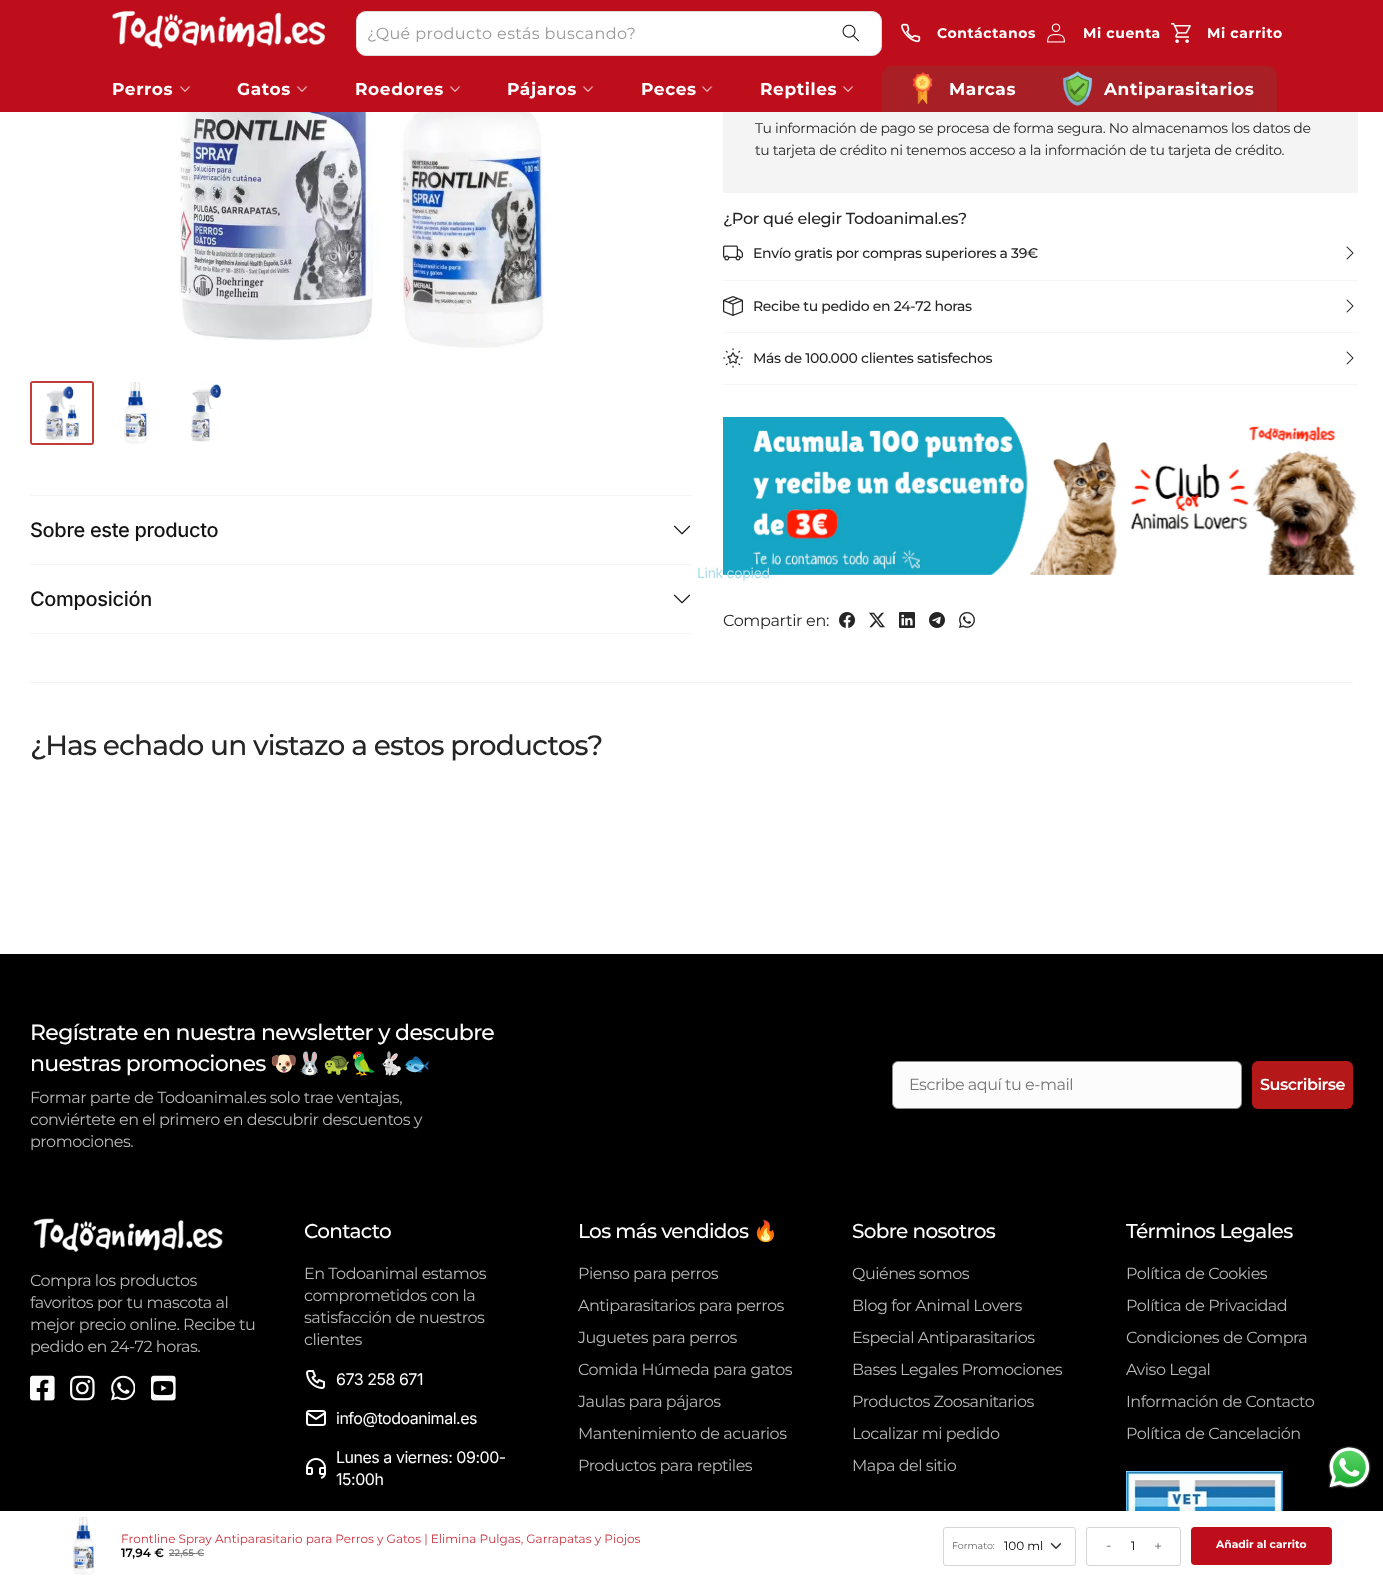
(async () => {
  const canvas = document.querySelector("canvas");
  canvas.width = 1383;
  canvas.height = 1581;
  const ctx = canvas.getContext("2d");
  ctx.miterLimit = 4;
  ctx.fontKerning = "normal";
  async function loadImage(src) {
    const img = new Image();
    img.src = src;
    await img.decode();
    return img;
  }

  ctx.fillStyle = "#ffffff";
  ctx.fillRect(0, 0, 1383, 1581);
  ctx.fillStyle = "#bf0e1b";
  ctx.fillRect(0, 0, 1383, 112);
  ctx.drawImage(await loadImage("img/1.png"), 112, 10, 214, 39);
  ctx.fillStyle = "#ffffff";
  ctx.beginPath();
  ctx.roundRect(356.5, 11.5, 525, 44, 9.5);
  ctx.fill();
  ctx.strokeStyle = "#dddddd";
  ctx.stroke();
  ctx.drawImage(await loadImage("img/2.png"), 842, 24, 17, 18);
  ctx.drawImage(await loadImage("img/3.png"), 901, 23, 20, 20);
  ctx.drawImage(await loadImage("img/4.png"), 1047, 23, 18, 20);
  ctx.drawImage(await loadImage("img/5.png"), 1171, 23, 20, 20);
  ctx.drawImage(await loadImage("img/6.png"), 179, 86, 12, 6);
  ctx.drawImage(await loadImage("img/6.png"), 296, 86, 12, 6);
  ctx.drawImage(await loadImage("img/7.png"), 449, 86, 12, 6);
  ctx.drawImage(await loadImage("img/7.png"), 582, 86, 12, 6);
  ctx.drawImage(await loadImage("img/6.png"), 701, 86, 12, 6);
  ctx.drawImage(await loadImage("img/7.png"), 842, 86, 12, 6);
  ctx.fillStyle = "#a82025";
  ctx.beginPath();
  ctx.roundRect(882, 66, 156, 46, [10, 0, 0, 0]);
  ctx.fill();
  ctx.drawImage(await loadImage("img/8.png"), 912, 72, 21, 32);
  ctx.beginPath();
  ctx.roundRect(1038, 66, 239, 46, [0, 10, 0, 0]);
  ctx.fill();
  ctx.drawImage(await loadImage("img/9.png"), 1062, 71, 31, 35);
  ctx.drawImage(await loadImage("img/10.png"), 178, 112, 371, 236);
  ctx.beginPath();
  ctx.roundRect(31, 382, 62, 62, 2);
  ctx.strokeStyle = "#c33c3c";
  ctx.lineWidth = 2;
  ctx.stroke();
  ctx.drawImage(await loadImage("img/11.png"), 32, 383, 60, 60);
  ctx.drawImage(await loadImage("img/12.png"), 124, 382, 26, 62);
  ctx.drawImage(await loadImage("img/13.png"), 190, 381, 32, 61);
  ctx.fillStyle = "#f5f5f5";
  ctx.fillRect(30, 495, 662, 1);
  ctx.fillRect(30, 564, 662, 1);
  ctx.drawImage(await loadImage("img/14.png"), 673, 525, 18, 10);
  ctx.fillRect(30, 633, 662, 1);
  ctx.drawImage(await loadImage("img/14.png"), 673, 594, 18, 10);
  ctx.fillStyle = "#f4f4f4";
  ctx.fillRect(723, 112, 635, 81);
  ctx.fillStyle = "#f5f5f5";
  ctx.fillRect(723, 280, 635, 1);
  ctx.drawImage(await loadImage("img/15.png"), 723, 245, 20, 16);
  ctx.drawImage(await loadImage("img/16.png"), 1346, 246, 8, 14);
  ctx.fillRect(723, 332, 635, 1);
  ctx.drawImage(await loadImage("img/17.png"), 723, 296, 20, 20);
  ctx.drawImage(await loadImage("img/16.png"), 1346, 299, 8, 14);
  ctx.fillRect(723, 384, 635, 1);
  ctx.drawImage(await loadImage("img/18.png"), 723, 348, 20, 20);
  ctx.drawImage(await loadImage("img/16.png"), 1346, 351, 8, 14);
  ctx.drawImage(await loadImage("img/19.png"), 723, 417, 635, 158);
  ctx.drawImage(await loadImage("img/20.png"), 839, 612, 16, 16);
  ctx.drawImage(await loadImage("img/21.png"), 869, 612, 16, 16);
  ctx.drawImage(await loadImage("img/22.png"), 899, 612, 16, 16);
  ctx.drawImage(await loadImage("img/23.png"), 929, 612, 16, 16);
  ctx.drawImage(await loadImage("img/24.png"), 959, 612, 16, 16);
  ctx.fillStyle = "#f4f4f4";
  ctx.fillRect(30, 682, 1323, 1);
  ctx.fillStyle = "#000000";
  ctx.fillRect(0, 954, 1383, 557);
  ctx.fillStyle = "#fcfcfc";
  ctx.beginPath();
  ctx.roundRect(892.5, 1061.5, 349, 47, 5.5);
  ctx.fill();
  ctx.strokeStyle = "#8a8a8a";
  ctx.lineWidth = 1;
  ctx.stroke();
  ctx.fillStyle = "#b41818";
  ctx.beginPath();
  ctx.roundRect(1252, 1061, 101, 48, 6);
  ctx.fill();
  ctx.drawImage(await loadImage("img/25.png"), 33, 1218, 190, 34);
  ctx.drawImage(await loadImage("img/26.png"), 30, 1375, 25, 26);
  ctx.drawImage(await loadImage("img/27.png"), 70, 1375, 25, 26);
  ctx.drawImage(await loadImage("img/28.png"), 111, 1375, 24, 26);
  ctx.drawImage(await loadImage("img/29.png"), 151, 1375, 25, 26);
  ctx.drawImage(await loadImage("img/30.png"), 306, 1370, 19, 19);
  ctx.drawImage(await loadImage("img/31.png"), 306, 1410, 20, 16);
  ctx.drawImage(await loadImage("img/32.png"), 306, 1458, 20, 21);
  ctx.drawImage(await loadImage("img/33.png"), 1126, 1471, 157, 40);
  ctx.drawImage(await loadImage("img/34.png"), 1328, 1446, 43, 43);
  ctx.fillStyle = "rgba(0, 0, 0, 0.09)";
  ctx.filter = "blur(5px)";
  ctx.beginPath();
  ctx.rect(0, 1511, 1383, 70);
  ctx.fill();
  ctx.filter = "none";
  ctx.fillStyle = "#ffffff";
  ctx.fillRect(0, 1511, 1383, 70);
  ctx.drawImage(await loadImage("img/35.png"), 73, 1517, 21, 58);
  ctx.fillStyle = "#808080";
  ctx.fillRect(169, 1553, 35, 1);
  ctx.beginPath();
  ctx.roundRect(943.5, 1527.5, 132, 38, 2.5);
  ctx.strokeStyle = "#d5d5d5";
  ctx.stroke();
  ctx.drawImage(await loadImage("img/36.png"), 1050, 1543, 12, 6);
  ctx.beginPath();
  ctx.roundRect(1086.5, 1527.5, 94, 38, 2.5);
  ctx.stroke();
  ctx.fillStyle = "#bf0e1b";
  ctx.beginPath();
  ctx.roundRect(1191, 1527, 141, 38, 4);
  ctx.fill();
  ctx.letterSpacing = "0.4px";
  ctx.font = "16px Montserrat";
  ctx.fillStyle = "#999999";
  ctx.fillText("¿Qué producto estás buscando?", 367, 39);
  ctx.letterSpacing = "0.6px";
  ctx.font = "bold 14px Montserrat";
  ctx.fillStyle = "#ffffff";
  for (const [text, x, y] of [
    ["Contáctanos", 937, 38],
    ["Mi cuenta", 1083, 38],
    ["Mi carrito", 1207, 38],
  ]) {
    ctx.fillText(text, x, y);
  }
  ctx.font = "bold 17px Montserrat";
  for (const [text, x, y] of [
    ["Perros", 112, 95],
    ["Gatos", 237, 95],
    ["Roedores", 355, 95],
    ["Pájaros", 507, 95],
    ["Peces", 641, 95],
    ["Reptiles", 760, 95],
    ["Marcas", 949, 95],
    ["Antiparasitarios", 1104, 95],
  ]) {
    ctx.fillText(text, x, y);
  }
  ctx.letterSpacing = "-0.32px";
  ctx.font = "500 20px Inter";
  ctx.fillStyle = "#131313";
  ctx.fillText("Sobre este producto", 30, 537);
  ctx.fillText("Composición", 30, 606);
  ctx.font = "14px Montserrat";
  ctx.fillStyle = "#252525";
  ctx.fillText("Tu información de pago se procesa de forma segura. No almacenamos los datos de", 755, 133);
  ctx.fillText("tu tarjeta de crédito ni tenemos acceso a la información de tu tarjeta de crédito.", 755, 155);
  ctx.font = "500 16px Montserrat";
  ctx.fillText("¿Por qué elegir Todoanimal.es?", 723, 224);
  ctx.font = "500 14px Montserrat";
  for (const [text, x, y] of [
    ["Envío gratis por compras superiores a 39€", 753, 258],
    ["Recibe tu pedido en 24-72 horas", 753, 311],
    ["Más de 100.000 clientes satisfechos", 753, 363],
  ]) {
    ctx.fillText(text, x, y);
  }
  ctx.font = "14px Inter";
  ctx.fillStyle = "#aadee9";
  ctx.fillText("Link copied", 697, 578);
  ctx.font = "16px Montserrat";
  ctx.fillStyle = "#252525";
  ctx.fillText("Compartir en:", 723, 626);
  ctx.letterSpacing = "-0.85px";
  ctx.font = "500 28px Montserrat";
  ctx.fillText("¿Has echado un vistazo a estos productos?", 30, 755);
  ctx.letterSpacing = "-0.65px";
  ctx.font = "500 22px Montserrat";
  ctx.fillStyle = "#ffffff";
  ctx.fillText("Regístrate en nuestra newsletter y descubre", 30, 1040);
  ctx.fillText("nuestras promociones", 30, 1071);
  ctx.font = "22px Noto Color Emoji";
  ctx.fillText("🐶🐰🐢🦜🐇🐟", 270, 1071);
  ctx.letterSpacing = "-0.48px";
  ctx.font = "16px Montserrat";
  ctx.fillStyle = "#b8b8b8";
  for (const [text, x, y] of [
    ["Formar parte de Todoanimal.es solo trae ventajas,", 30, 1103],
    ["conviértete en el primero en descubrir descuentos y", 30, 1125],
    ["promociones.", 30, 1147],
  ]) {
    ctx.fillText(text, x, y);
  }
  ctx.fillStyle = "#757575";
  ctx.fillText("Escribe aquí tu e-mail", 909, 1090);
  ctx.font = "600 16px Montserrat";
  ctx.fillStyle = "#ffffff";
  ctx.fillText("Suscribirse", 1260, 1090);
  ctx.font = "16px Montserrat";
  ctx.fillStyle = "#b8b8b8";
  for (const [text, x, y] of [
    ["Compra los productos", 30, 1286],
    ["favoritos por tu mascota al", 30, 1308],
    ["mejor precio online. Recibe tu", 30, 1330],
    ["pedido en 24-72 horas.", 30, 1352],
  ]) {
    ctx.fillText(text, x, y);
  }
  ctx.letterSpacing = "-0.65px";
  ctx.font = "500 20px Montserrat";
  ctx.fillStyle = "#ffffff";
  ctx.fillText("Contacto", 304, 1238);
  ctx.letterSpacing = "-0.48px";
  ctx.font = "16px Montserrat";
  ctx.fillStyle = "#b8b8b8";
  for (const [text, x, y] of [
    ["En Todoanimal estamos", 304, 1279],
    ["comprometidos con la", 304, 1301],
    ["satisfacción de nuestros", 304, 1323],
    ["clientes", 304, 1345],
  ]) {
    ctx.fillText(text, x, y);
  }
  ctx.font = "16px Inter";
  ctx.fillStyle = "#ffffff";
  for (const [text, x, y] of [
    ["673 258 671", 336, 1385],
    ["info@todoanimal.es", 336, 1424],
    ["Lunes a viernes: 09:00-", 336, 1463],
    ["15:00h", 336, 1485],
  ]) {
    ctx.fillText(text, x, y);
  }
  ctx.letterSpacing = "-0.65px";
  ctx.font = "500 20px Montserrat";
  ctx.fillText("Los más vendidos", 578, 1238);
  ctx.font = "20px Noto Color Emoji";
  ctx.fillText("🔥", 753, 1238);
  ctx.letterSpacing = "-0.48px";
  ctx.font = "16px Montserrat";
  ctx.fillStyle = "#b8b8b8";
  for (const [text, x, y] of [
    ["Pienso para perros", 578, 1279],
    ["Antiparasitarios para perros", 578, 1311],
    ["Juguetes para perros", 578, 1343],
    ["Comida Húmeda para gatos", 578, 1375],
    ["Jaulas para pájaros", 578, 1407],
    ["Mantenimiento de acuarios", 578, 1439],
    ["Productos para reptiles", 578, 1471],
  ]) {
    ctx.fillText(text, x, y);
  }
  ctx.letterSpacing = "-0.65px";
  ctx.font = "500 20px Montserrat";
  ctx.fillStyle = "#ffffff";
  ctx.fillText("Sobre nosotros", 852, 1238);
  ctx.letterSpacing = "-0.48px";
  ctx.font = "16px Montserrat";
  ctx.fillStyle = "#b8b8b8";
  for (const [text, x, y] of [
    ["Quiénes somos", 852, 1279],
    ["Blog for Animal Lovers", 852, 1311],
    ["Especial Antiparasitarios", 852, 1343],
    ["Bases Legales Promociones", 852, 1375],
    ["Productos Zoosanitarios", 852, 1407],
    ["Localizar mi pedido", 852, 1439],
    ["Mapa del sitio", 852, 1471],
  ]) {
    ctx.fillText(text, x, y);
  }
  ctx.letterSpacing = "-0.65px";
  ctx.font = "500 20px Montserrat";
  ctx.fillStyle = "#ffffff";
  ctx.fillText("Términos Legales", 1126, 1238);
  ctx.letterSpacing = "-0.48px";
  ctx.font = "16px Montserrat";
  ctx.fillStyle = "#b8b8b8";
  for (const [text, x, y] of [
    ["Política de Cookies", 1126, 1279],
    ["Política de Privacidad", 1126, 1311],
    ["Condiciones de Compra", 1126, 1343],
    ["Aviso Legal", 1126, 1375],
    ["Información de Contacto", 1126, 1407],
    ["Política de Cancelación", 1126, 1439],
  ]) {
    ctx.fillText(text, x, y);
  }
  ctx.letterSpacing = "0px";
  ctx.font = "12px Montserrat";
  ctx.fillStyle = "#c9323d";
  ctx.fillText("Frontline Spray Antiparasitario para Perros y Gatos | Elimina Pulgas, Garrapatas y Piojos", 121, 1543);
  ctx.font = "600 12px Montserrat";
  ctx.fillStyle = "#000000";
  ctx.fillText("17,94 €", 121, 1557);
  ctx.font = "600 9.5px Montserrat";
  ctx.fillStyle = "#808080";
  ctx.fillText("22,65 €", 169, 1556);
  ctx.font = "9.5px Montserrat";
  ctx.fillStyle = "#666666";
  ctx.fillText("Formato:", 952, 1549);
  ctx.font = "12px Montserrat";
  ctx.fillStyle = "#000000";
  ctx.fillText("100 ml", 1004, 1550);
  ctx.font = "14px Montserrat";
  ctx.fillStyle = "#666666";
  ctx.fillText("-", 1106, 1550);
  ctx.font = "12px Montserrat";
  ctx.fillStyle = "#000000";
  ctx.fillText("1", 1131, 1550);
  ctx.font = "14px Montserrat";
  ctx.fillStyle = "#666666";
  ctx.fillText("+", 1154, 1551);
  ctx.font = "bold 10.75px Montserrat";
  ctx.fillStyle = "#ffffff";
  ctx.fillText("Añadir al carrito", 1216, 1548);
})();
